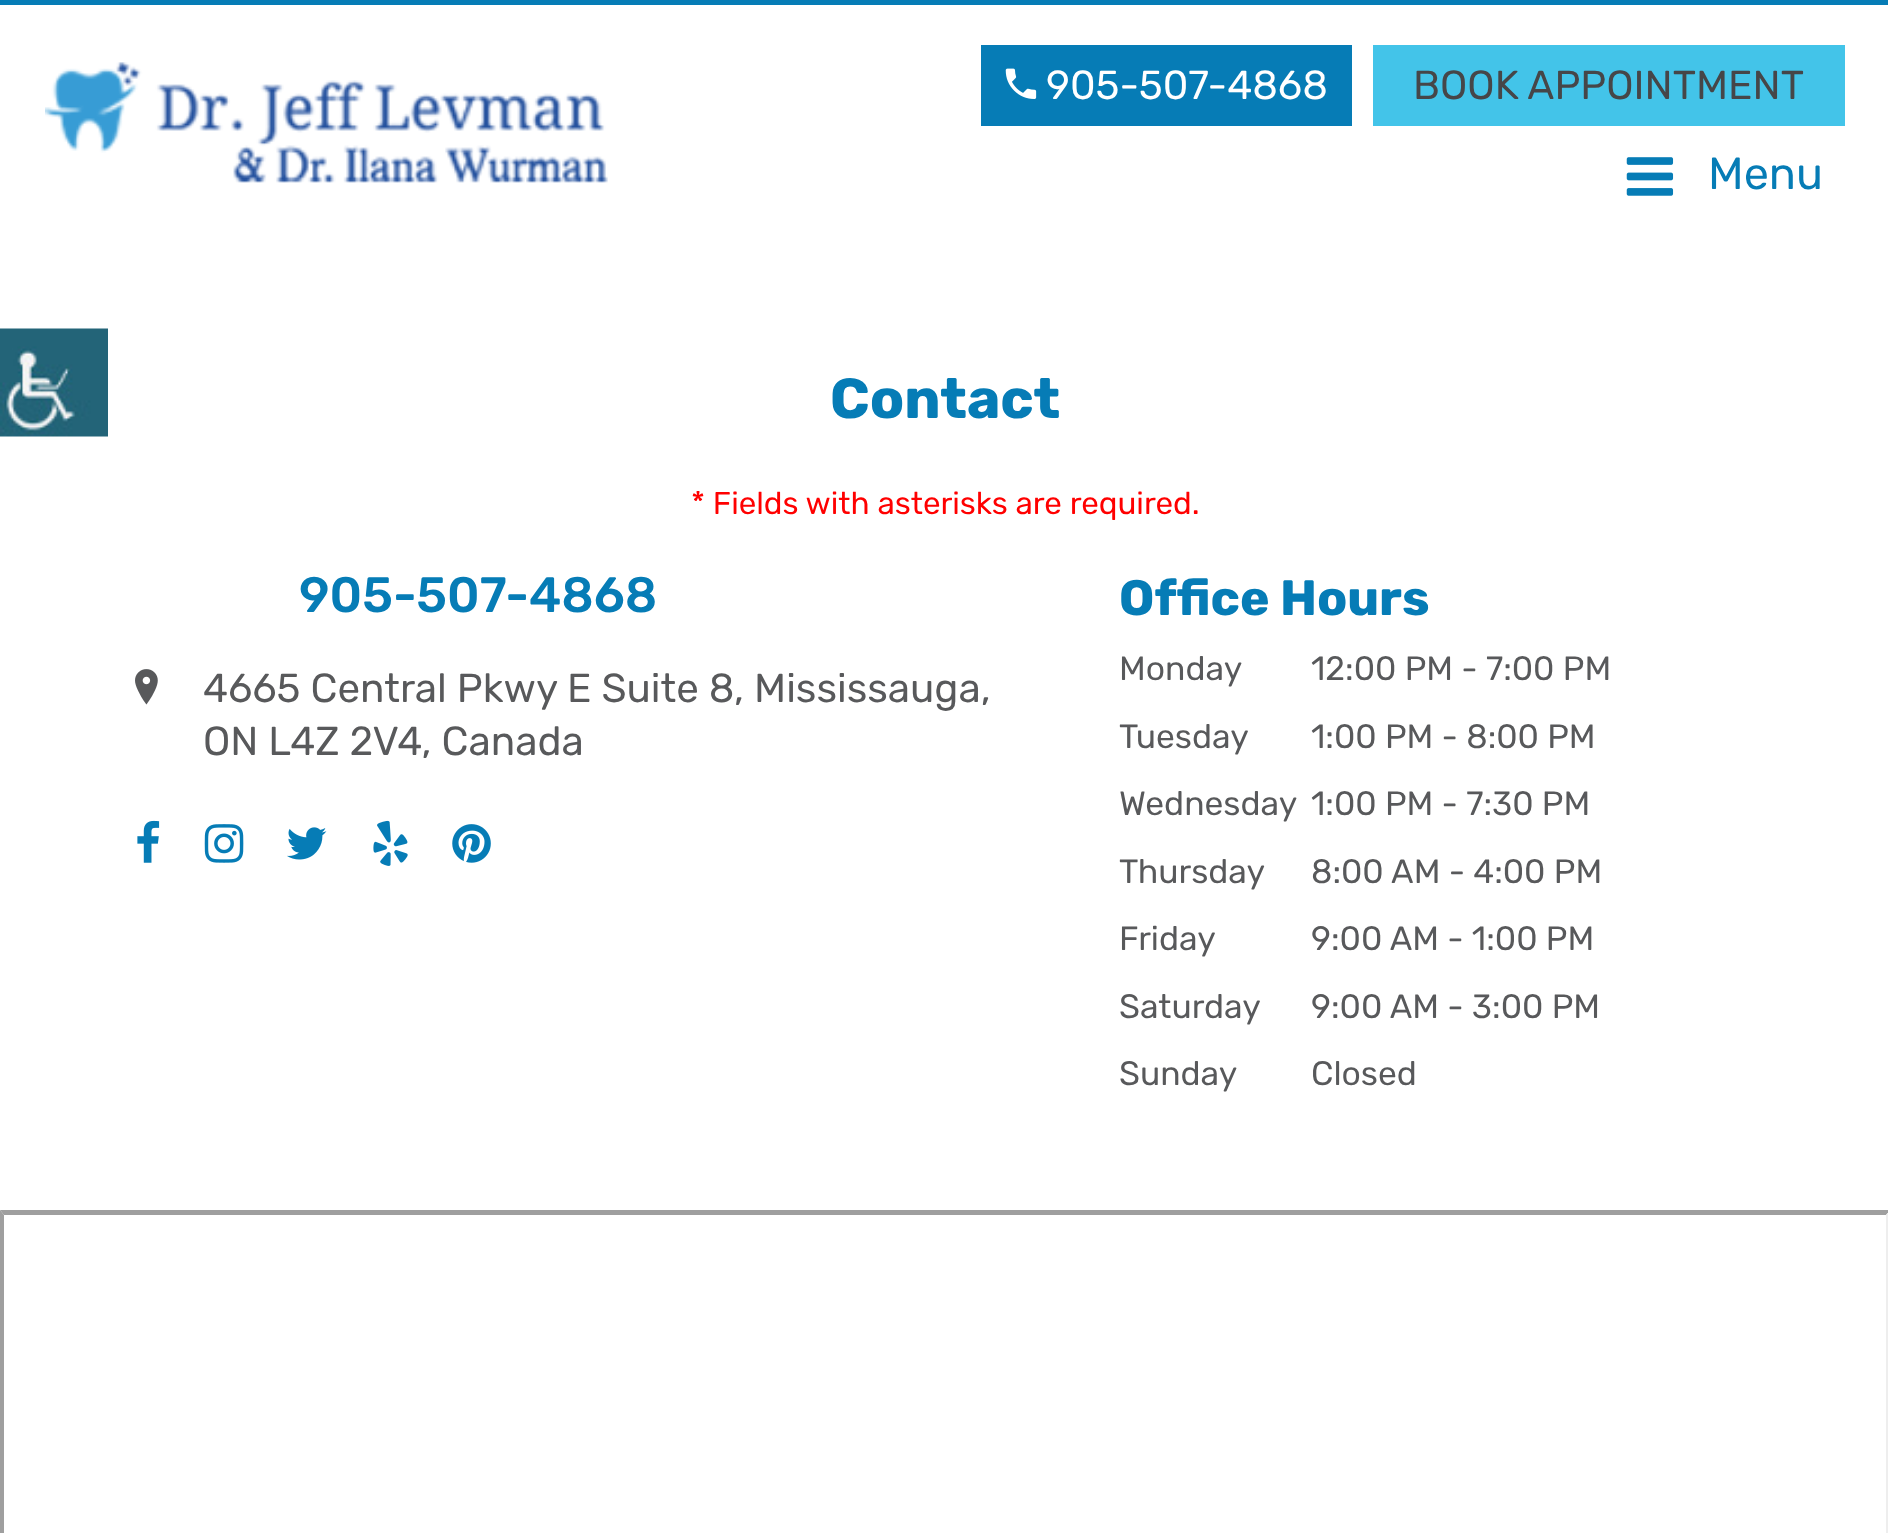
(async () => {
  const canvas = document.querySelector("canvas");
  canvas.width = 1888;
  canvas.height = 1533;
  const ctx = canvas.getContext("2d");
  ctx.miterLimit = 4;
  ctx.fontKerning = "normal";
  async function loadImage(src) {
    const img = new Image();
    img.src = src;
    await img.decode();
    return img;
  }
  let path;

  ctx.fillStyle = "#ffffff";
  ctx.fillRect(0, 0, 1888, 1533);
  ctx.drawImage(await loadImage("img/1.png"), 0, 328, 108, 109);
  ctx.fillStyle = "#067cb6";
  ctx.fillRect(0, 0, 1888, 5);
  ctx.drawImage(await loadImage("img/2.png"), 45, 62, 563, 121);
  ctx.fillRect(981, 45, 371, 81);
  ctx.drawImage(await loadImage("img/3.png"), 1005, 68, 32, 31);
  ctx.fillStyle = "#43c4e9";
  ctx.fillRect(1373, 45, 472, 81);
  ctx.drawImage(await loadImage("img/4.png"), 1626, 157, 48, 39);
  ctx.drawImage(await loadImage("img/5.png"), 135, 669, 23, 36);
  ctx.drawImage(await loadImage("img/6.png"), 137, 820, 23, 43);
  ctx.drawImage(await loadImage("img/7.png"), 204, 824, 40, 39);
  ctx.drawImage(await loadImage("img/8.png"), 287, 827, 40, 33);
  ctx.drawImage(await loadImage("img/9.png"), 373, 820, 35, 46);
  ctx.drawImage(await loadImage("img/10.png"), 452, 824, 39, 39);
  ctx.fillStyle = "#9f9f9f";
  path = new Path2D("M0 1210H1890L1886 1215H4Z");
  ctx.fill(path);
  path = new Path2D("M0 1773V1210L4 1215V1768Z");
  ctx.fill(path);
  ctx.fillStyle = "#eeeeee";
  path = new Path2D("M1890 1210V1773L1886 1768V1215Z");
  ctx.fill(path);
  ctx.font = "40.5px Rubik";
  ctx.fillStyle = "#ffffff";
  ctx.fillText("905-507-4868", 1046, 99);
  ctx.fillStyle = "#464648";
  ctx.fillText("BOOK APPOINTMENT", 1413, 99);
  ctx.font = "45px Rubik";
  ctx.fillStyle = "#067cb6";
  ctx.fillText("Menu", 1708, 189);
  ctx.font = "bold 56.25px Rubik";
  ctx.fillText("Contact", 830, 418);
  ctx.font = "31.5px Rubik";
  ctx.fillStyle = "#ff0000";
  ctx.fillText("* Fields with asterisks are required.", 691, 514);
  ctx.font = "500 49.5px Rubik";
  ctx.fillStyle = "#067cb6";
  ctx.fillText("905-507-4868", 299, 612);
  ctx.font = "40.5px Rubik";
  ctx.fillStyle = "#58595b";
  ctx.fillText("4665 Central Pkwy E Suite 8, Mississauga,", 203, 702);
  ctx.fillText("ON L4Z 2V4, Canada", 203, 755);
  ctx.font = "bold 49.5px Rubik";
  ctx.fillStyle = "#067cb6";
  ctx.fillText("Office Hours", 1119, 615);
  ctx.font = "33.75px Rubik";
  ctx.fillStyle = "#58595b";
  for (const [text, x, y] of [
    ["Monday", 1119, 680],
    ["12:00 PM - 7:00 PM", 1311, 680],
    ["Tuesday", 1119, 748],
    ["1:00 PM - 8:00 PM", 1311, 748],
    ["Wednesday", 1119, 815],
    ["1:00 PM - 7:30 PM", 1311, 815],
    ["Thursday", 1119, 883],
    ["8:00 AM - 4:00 PM", 1311, 883],
    ["Friday", 1119, 950],
    ["9:00 AM - 1:00 PM", 1311, 950],
    ["Saturday", 1119, 1018],
    ["9:00 AM - 3:00 PM", 1311, 1018],
    ["Sunday", 1119, 1085],
    ["Closed", 1311, 1085],
  ]) {
    ctx.fillText(text, x, y);
  }
})();
